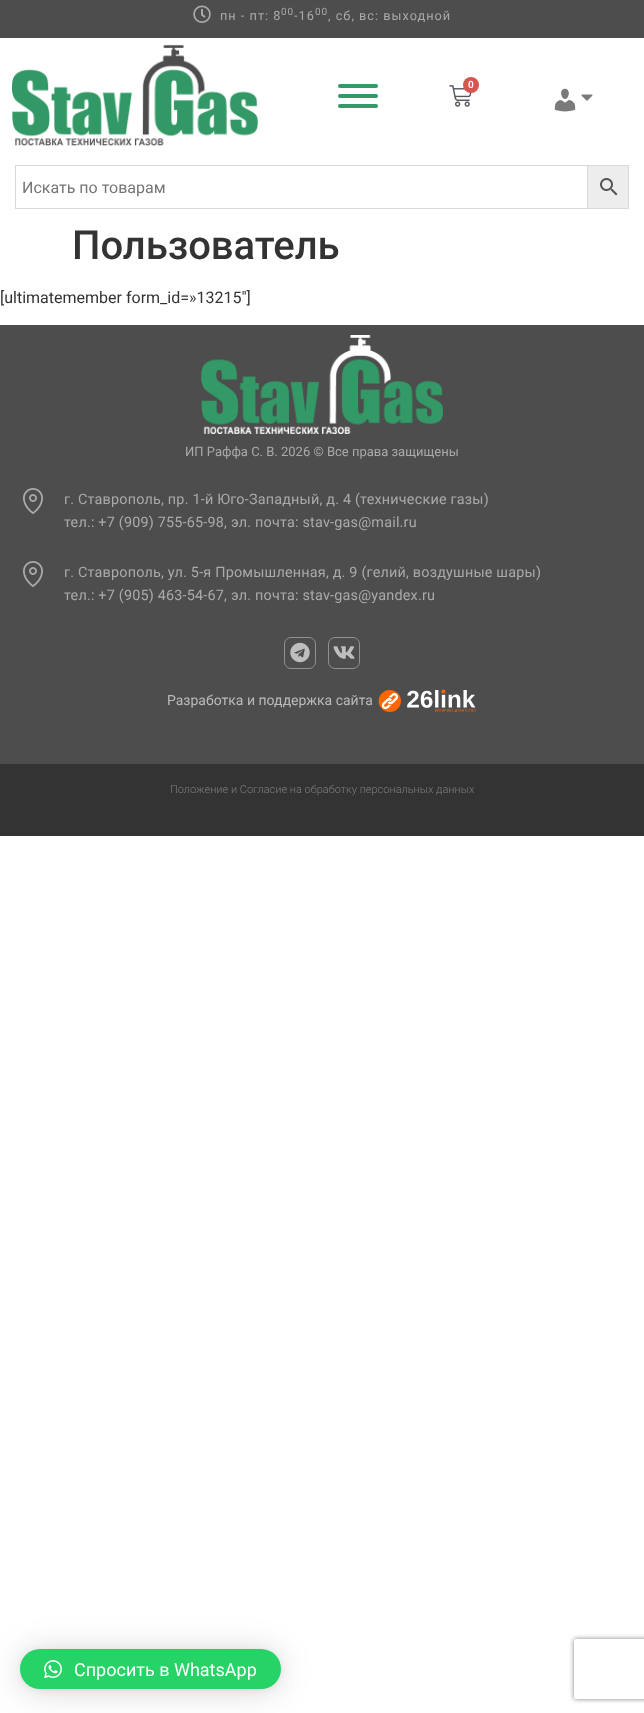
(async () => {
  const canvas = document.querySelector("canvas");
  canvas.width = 644;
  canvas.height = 1713;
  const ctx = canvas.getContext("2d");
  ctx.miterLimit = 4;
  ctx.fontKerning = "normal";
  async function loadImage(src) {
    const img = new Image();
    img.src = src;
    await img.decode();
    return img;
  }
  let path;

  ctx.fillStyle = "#ffffff";
  ctx.fillRect(0, 0, 644, 1713);
  ctx.fillStyle = "#4d4d4d";
  ctx.fillRect(0, 0, 644, 38);
  ctx.drawImage(await loadImage("img/1.png"), 193, 5, 18, 18);
  ctx.drawImage(await loadImage("img/2.png"), 11, 44, 248, 103);
  ctx.fillStyle = "#339966";
  ctx.beginPath();
  ctx.roundRect(338, 84, 40, 4, 2);
  ctx.fill();
  ctx.beginPath();
  ctx.roundRect(338, 94, 40, 4, 2);
  ctx.fill();
  ctx.beginPath();
  ctx.roundRect(338, 104, 40, 4, 2);
  ctx.fill();
  ctx.drawImage(await loadImage("img/3.png"), 449, 85, 23, 22);
  ctx.fillStyle = "#d9534f";
  ctx.beginPath();
  ctx.arc(471, 85, 8, 0, Math.PI * 2);
  ctx.fill();
  ctx.drawImage(await loadImage("img/4.png"), 554, 88, 22, 24);
  ctx.drawImage(await loadImage("img/5.png"), 581, 94, 12, 7);
  ctx.fillStyle = "#ededed";
  ctx.beginPath();
  ctx.rect(587.5, 165.5, 41, 43);
  ctx.fill();
  ctx.strokeStyle = "#d8d8d8";
  ctx.stroke();
  ctx.strokeRect(15.5, 165.5, 572, 43);
  ctx.drawImage(await loadImage("img/6.png"), 600, 178, 18, 18);
  ctx.fillStyle = "#4d4d4d";
  ctx.fillRect(0, 325, 644, 439);
  ctx.drawImage(await loadImage("img/7.png"), 201, 335, 242, 99);
  ctx.drawImage(await loadImage("img/8.png"), 23, 488, 20, 26);
  ctx.drawImage(await loadImage("img/8.png"), 23, 561, 20, 26);
  ctx.beginPath();
  ctx.roundRect(284.5, 637.5, 31, 31, 6.5);
  ctx.strokeStyle = "#948e8e";
  ctx.stroke();
  ctx.drawImage(await loadImage("img/9.png"), 290, 642, 20, 21);
  ctx.beginPath();
  ctx.roundRect(328.5, 637.5, 31, 31, 6.5);
  ctx.stroke();
  ctx.drawImage(await loadImage("img/10.png"), 333, 646, 22, 13);
  ctx.drawImage(await loadImage("img/11.png"), 378, 689, 98, 23);
  ctx.fillStyle = "#333333";
  ctx.fillRect(0, 764, 644, 72);
  ctx.fillStyle = "rgba(0, 0, 0, 0.16)";
  ctx.filter = "blur(16px)";
  ctx.beginPath();
  ctx.roundRect(20, 1651, 261, 40, 20);
  ctx.fill();
  ctx.filter = "none";
  ctx.fillStyle = "rgba(0, 0, 0, 0.06)";
  ctx.filter = "blur(3px)";
  ctx.beginPath();
  ctx.roundRect(20, 1650, 261, 40, 20);
  ctx.fill();
  ctx.filter = "none";
  ctx.fillStyle = "#25d366";
  ctx.beginPath();
  ctx.roundRect(20, 1649, 261, 40, 20);
  ctx.fill();
  ctx.drawImage(await loadImage("img/12.png"), 44, 1660, 18, 19);
  ctx.save();
  path = new Path2D("M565 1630H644V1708H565ZM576 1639H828C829 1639 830 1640 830 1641V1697C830 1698 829 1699 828 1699H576C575 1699 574 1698 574 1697V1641C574 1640 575 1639 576 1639Z");
  ctx.clip(path, "evenodd");
  ctx.fillStyle = "#808080";
  ctx.filter = "blur(2.5px)";
  ctx.beginPath();
  ctx.roundRect(574, 1639, 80, 60, 2);
  ctx.fill();
  ctx.filter = "none";
  ctx.restore();
  ctx.letterSpacing = "1px";
  ctx.font = "12.75px Roboto";
  ctx.fillStyle = "#aaaaaa";
  ctx.fillText("пн - пт: 8", 220, 20);
  ctx.font = "10px Roboto";
  ctx.fillText("00", 281, 15);
  ctx.font = "12.75px Roboto";
  ctx.fillText("-16", 294, 20);
  ctx.font = "10px Roboto";
  ctx.fillText("00", 315, 15);
  ctx.font = "12.75px Roboto";
  ctx.fillText(", сб, вс: выходной", 328, 20);
  ctx.letterSpacing = "0px";
  ctx.font = "600 10px Roboto";
  ctx.fillStyle = "#ffffff";
  ctx.fillText("0", 468, 88);
  ctx.font = "16px Roboto";
  ctx.fillStyle = "#757575";
  ctx.fillText("Искать по товарам", 22, 193);
  ctx.font = "500 40px Roboto";
  ctx.fillStyle = "#333333";
  ctx.fillText("Пользователь", 72, 259);
  ctx.font = "16px Roboto";
  ctx.fillText("[ultimatemember form_id=»13215″]", 0, 303);
  ctx.font = "13px Roboto";
  ctx.fillStyle = "#aaaaaa";
  ctx.fillText("ИП Раффа С. В. 2026 © Все права защищены", 185, 456);
  ctx.letterSpacing = "0.2px";
  ctx.font = "14.4px Roboto";
  for (const [text, x, y] of [
    ["г. Ставрополь, пр. 1-й Юго-Западный, д. 4 (технические газы)", 64, 504],
    ["тел.: +7 (909) 755-65-98, эл. почта: stav-gas@mail.ru", 64, 527],
    ["г. Ставрополь, ул. 5-я Промышленная, д. 9 (гелий, воздушные шары)", 64, 577],
    ["тел.: +7 (905) 463-54-67, эл. почта: stav-gas@yandex.ru", 64, 600],
  ]) {
    ctx.fillText(text, x, y);
  }
  ctx.letterSpacing = "0px";
  ctx.font = "14px Roboto";
  ctx.fillStyle = "#bababa";
  ctx.fillText("Разработка и поддержка сайта", 167, 705);
  ctx.font = "300 11px Roboto";
  ctx.fillStyle = "#7e7e7e";
  ctx.fillText("Положение и Согласие на обработку персональных данных", 170, 793);
  ctx.font = "18px Roboto";
  ctx.fillStyle = "#ffffff";
  ctx.fillText("Спросить в WhatsApp", 74, 1676);
})();
